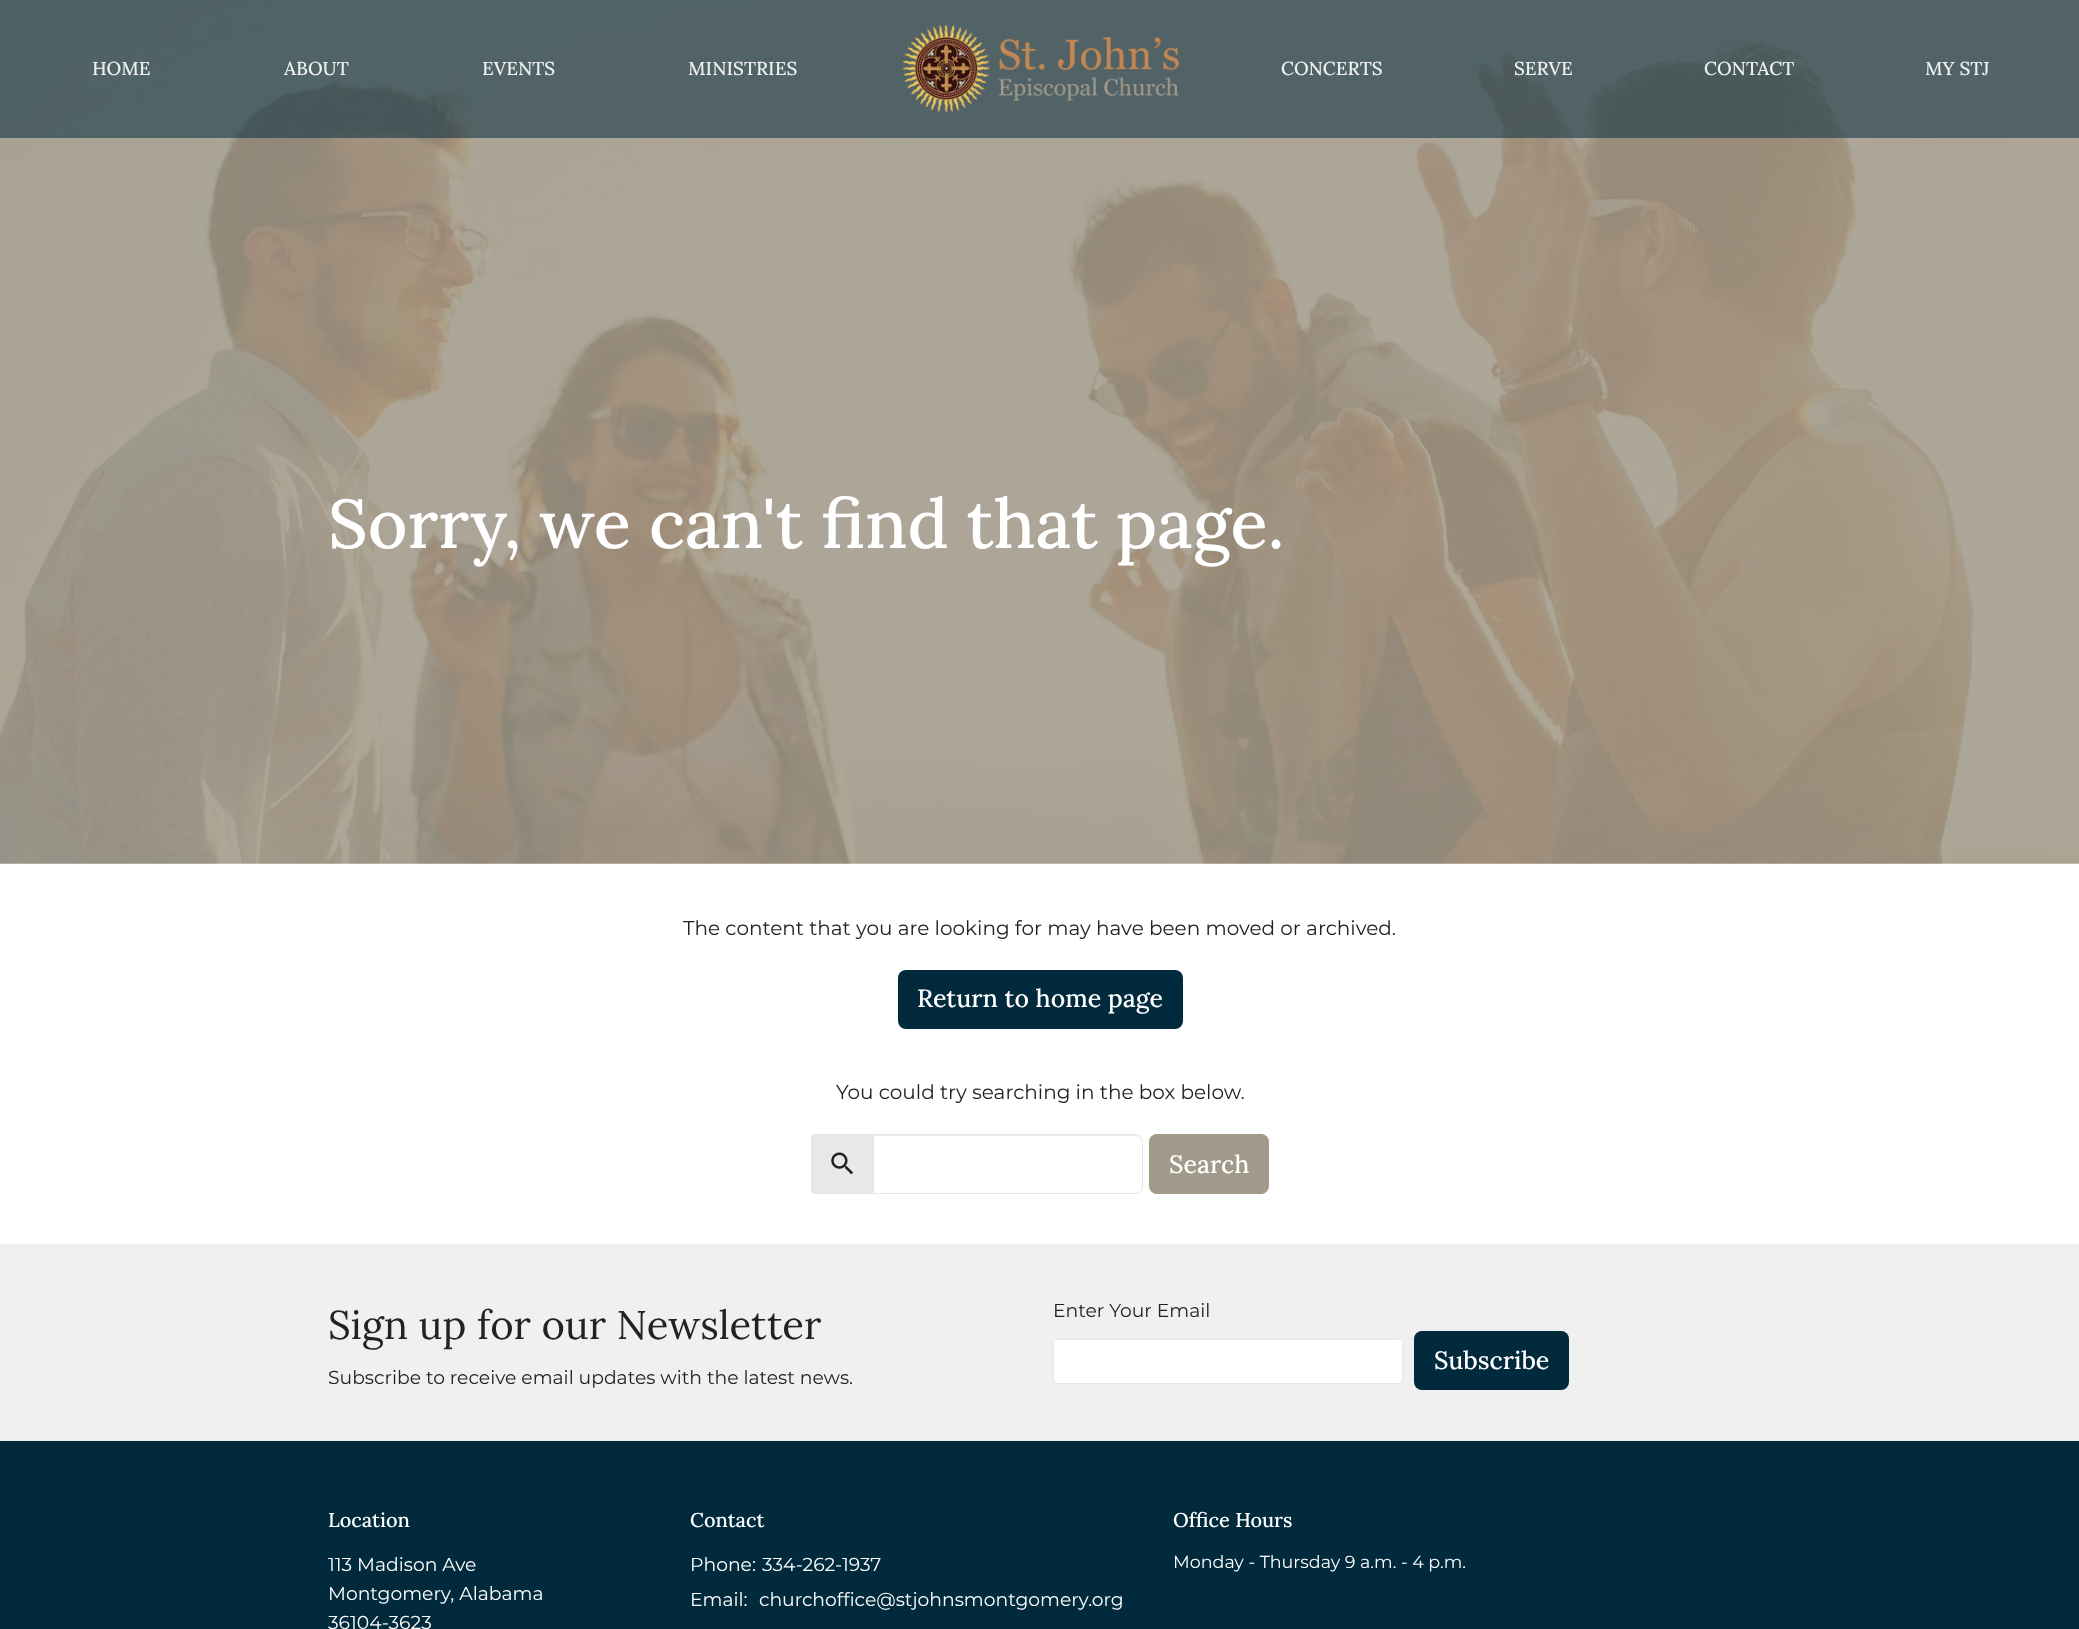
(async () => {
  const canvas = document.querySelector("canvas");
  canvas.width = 2079;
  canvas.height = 1629;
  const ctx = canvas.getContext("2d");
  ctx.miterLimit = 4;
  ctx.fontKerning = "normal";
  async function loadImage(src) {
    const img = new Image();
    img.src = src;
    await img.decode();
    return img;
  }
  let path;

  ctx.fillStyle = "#ffffff";
  ctx.fillRect(0, 0, 2079, 1629);
  ctx.drawImage(await loadImage("img/2.png"), 0, 0, 2079, 864);
  ctx.fillStyle = "rgba(2, 42, 61, 0.53)";
  ctx.fillRect(0, 0, 2079, 138);
  ctx.drawImage(await loadImage("img/1.png"), 902, 25, 277, 88);
  ctx.fillStyle = "#022a3d";
  ctx.beginPath();
  ctx.roundRect(898, 970, 285, 59, 8);
  ctx.fill();
  ctx.fillStyle = "#e8e8e8";
  ctx.beginPath();
  ctx.roundRect(811, 1134, 62, 60, [5, 0, 0, 5]);
  ctx.fill();
  ctx.fillStyle = "#e6e6e6";
  path = new Path2D("M816 1134H872V1194H816C813 1194 811 1192 811 1189V1139C811 1136 813 1134 816 1134ZM816 1135H872V1192H816C814 1192 812 1191 812 1189V1139C812 1137 814 1135 816 1135Z");
  ctx.fill(path, "evenodd");
  ctx.drawImage(await loadImage("img/3.png"), 831, 1152, 22, 23);
  ctx.fillStyle = "#ececec";
  path = new Path2D("M874 1136H1135C1138 1136 1141 1139 1141 1142V1141C1141 1138 1138 1135 1135 1135H874Z");
  ctx.fill(path);
  ctx.beginPath();
  ctx.roundRect(873.5, 1134.5, 269, 59, [0, 7.5, 7.5, 0]);
  ctx.strokeStyle = "#e6e6e6";
  ctx.stroke();
  ctx.fillStyle = "#a19989";
  ctx.beginPath();
  ctx.roundRect(1149, 1134, 120, 60, 8);
  ctx.fill();
  ctx.fillStyle = "#f0f0f0";
  ctx.fillRect(0, 1244, 2079, 197);
  ctx.fillStyle = "#ffffff";
  ctx.beginPath();
  ctx.roundRect(1053, 1338, 350, 46, 5);
  ctx.fill();
  ctx.fillStyle = "#ececec";
  path = new Path2D("M1058 1340H1398C1400 1340 1401 1342 1401 1344V1343C1401 1341 1399 1339 1397 1339H1058C1056 1339 1054 1341 1054 1343V1344C1054 1342 1055 1340 1058 1340Z");
  ctx.fill(path);
  ctx.beginPath();
  ctx.roundRect(1053.5, 1338.5, 349, 45, 4.5);
  ctx.stroke();
  ctx.fillStyle = "#022a3d";
  ctx.beginPath();
  ctx.roundRect(1414, 1331, 155, 59, 8);
  ctx.fill();
  ctx.fillRect(0, 1441, 2079, 188);
  ctx.font = "500 18.75px Lora";
  ctx.fillStyle = "#edeff0";
  for (const [text, x, y] of [
    ["HOME", 92, 75],
    ["ABOUT", 284, 75],
    ["EVENTS", 482, 75],
    ["MINISTRIES", 688, 75],
    ["CONCERTS", 1281, 75],
    ["SERVE", 1514, 75],
    ["CONTACT", 1704, 75],
    ["MY STJ", 1925, 75],
  ]) {
    ctx.fillText(text, x, y);
  }
  ctx.font = "500 68.75px Lora";
  ctx.fillStyle = "#ffffff";
  ctx.fillText("Sorry, we can't find that page.", 328, 548);
  ctx.font = "20px Montserrat";
  ctx.fillStyle = "#222222";
  ctx.fillText("The content that you are looking for may have been moved or archived.", 683, 935);
  ctx.font = "500 25px Lora";
  ctx.fillStyle = "#ffffff";
  ctx.fillText("Return to home page", 917, 1007);
  ctx.font = "20px Montserrat";
  ctx.fillStyle = "#222222";
  ctx.fillText("You could try searching in the box below.", 836, 1099);
  ctx.font = "500 25px Lora";
  ctx.fillStyle = "#ffffff";
  ctx.fillText("Search", 1169, 1173);
  ctx.font = "40px Lora";
  ctx.fillStyle = "#222222";
  ctx.fillText("Sign up for our Newsletter", 328, 1339);
  ctx.font = "18.75px Montserrat";
  ctx.fillText("Subscribe to receive email updates with the latest news.", 328, 1384);
  ctx.fillText("Enter Your Email", 1053, 1317);
  ctx.font = "500 25px Lora";
  ctx.fillStyle = "#ffffff";
  ctx.fillText("Subscribe", 1434, 1369);
  ctx.font = "500 20px Lora";
  ctx.fillText("Location", 328, 1527);
  ctx.font = "18.75px Montserrat";
  for (const [text, x, y] of [
    ["113 Madison Ave", 328, 1571],
    ["Montgomery, Alabama", 328, 1600],
    ["36104-3623", 328, 1629],
  ]) {
    ctx.fillText(text, x, y);
  }
  ctx.font = "500 20px Lora";
  ctx.fillText("Contact", 690, 1527);
  ctx.font = "18.75px Montserrat";
  for (const [text, x, y] of [
    ["Phone:", 690, 1571],
    ["334-262-1937", 762, 1571],
    ["Email:", 690, 1606],
    ["churchoffice@stjohnsmontgomery.org", 759, 1606],
  ]) {
    ctx.fillText(text, x, y);
  }
  ctx.font = "500 20px Lora";
  ctx.fillText("Office Hours", 1173, 1527);
  ctx.font = "17.5px Montserrat";
  ctx.fillText("Monday - Thursday 9 a.m. - 4 p.m.", 1173, 1568);
})();
